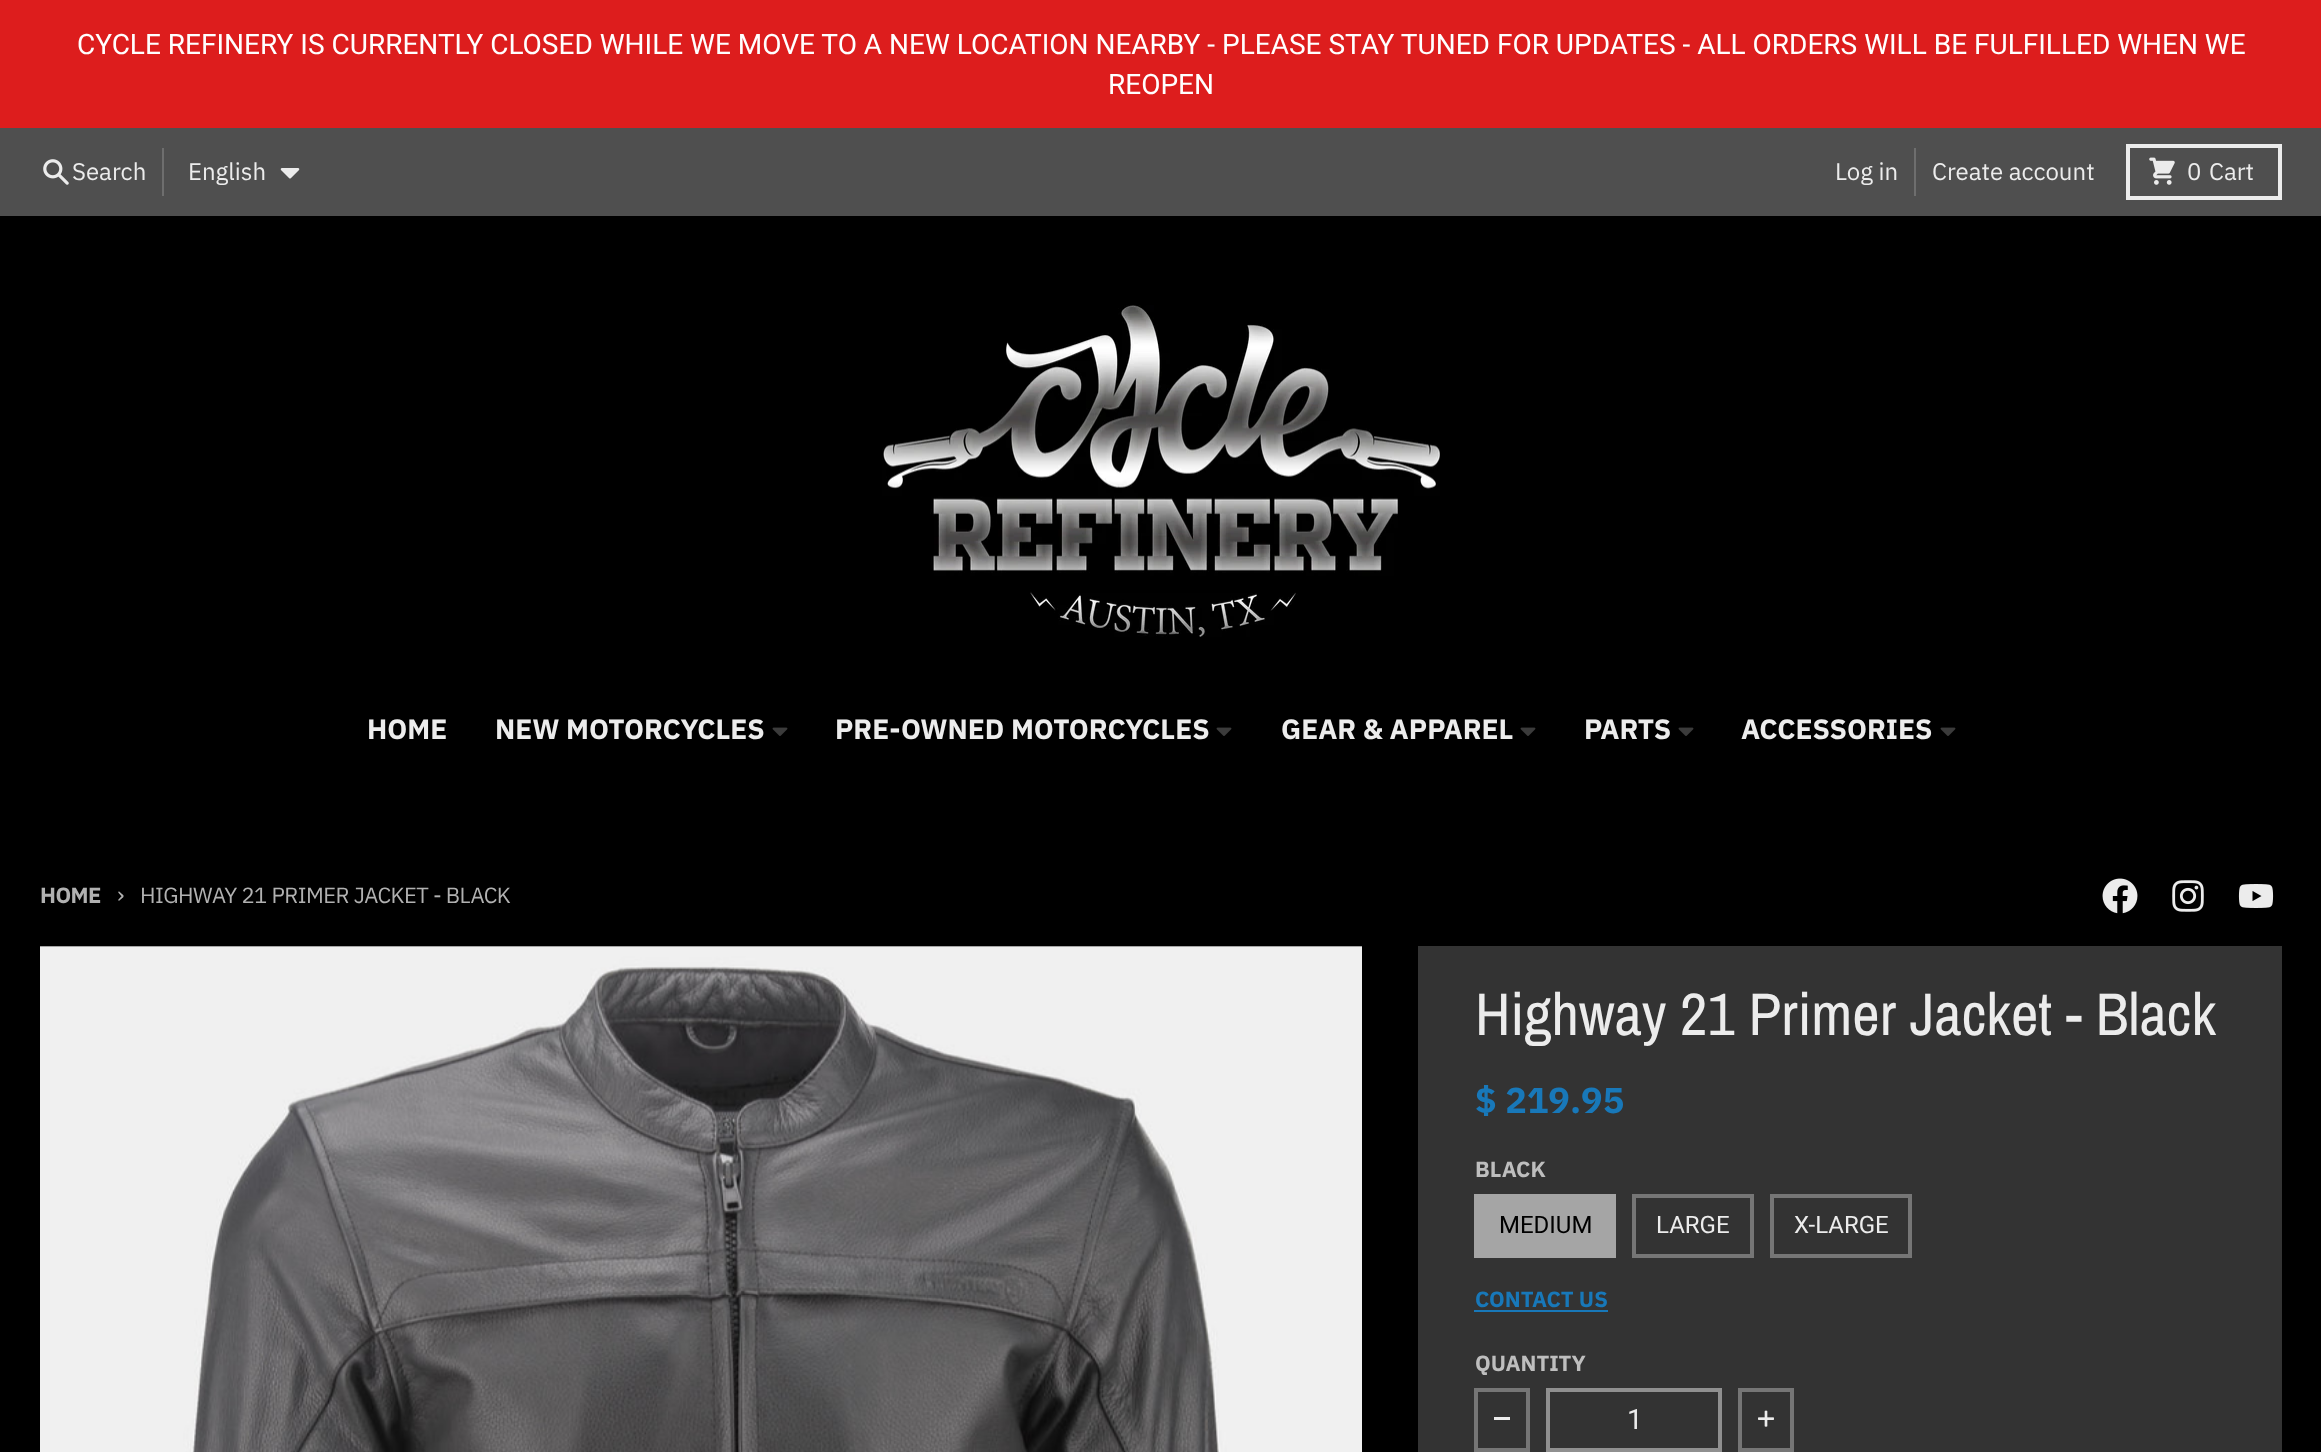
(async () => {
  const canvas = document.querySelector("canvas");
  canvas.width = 2321;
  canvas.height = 1452;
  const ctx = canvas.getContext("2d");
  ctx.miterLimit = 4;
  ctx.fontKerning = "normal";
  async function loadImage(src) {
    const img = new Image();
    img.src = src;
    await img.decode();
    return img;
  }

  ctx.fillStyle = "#000000";
  ctx.fillRect(0, 0, 2321, 1452);
  ctx.fillStyle = "#dd1d1d";
  ctx.fillRect(0, 0, 2321, 128);
  ctx.fillStyle = "#4f4f4f";
  ctx.fillRect(0, 128, 2321, 88);
  ctx.drawImage(await loadImage("img/1.png"), 43, 159, 26, 26);
  ctx.fillStyle = "#6e6e6e";
  ctx.fillRect(162, 148, 2, 48);
  ctx.drawImage(await loadImage("img/2.png"), 280, 168, 20, 11);
  ctx.fillRect(1914, 148, 2, 48);
  ctx.strokeStyle = "#ececec";
  ctx.lineWidth = 4;
  ctx.strokeRect(2128, 146, 152, 52);
  ctx.drawImage(await loadImage("img/3.png"), 2149, 157, 26, 28);
  ctx.drawImage(await loadImage("img/4.png"), 882, 305, 558, 332);
  ctx.drawImage(await loadImage("img/5.png"), 772, 727, 16, 9);
  ctx.drawImage(await loadImage("img/5.png"), 1216, 727, 16, 9);
  ctx.drawImage(await loadImage("img/5.png"), 1520, 727, 16, 9);
  ctx.drawImage(await loadImage("img/5.png"), 1678, 727, 16, 9);
  ctx.drawImage(await loadImage("img/5.png"), 1940, 727, 16, 9);
  ctx.drawImage(await loadImage("img/6.png"), 2102, 878, 36, 36);
  ctx.drawImage(await loadImage("img/7.png"), 2172, 880, 32, 32);
  ctx.drawImage(await loadImage("img/8.png"), 2238, 884, 36, 24);
  ctx.drawImage(await loadImage("img/9.png"), 40, 946, 1322, 506);
  ctx.fillStyle = "#333333";
  ctx.fillRect(1418, 946, 864, 506);
  ctx.fillStyle = "#a5a5a5";
  ctx.fillRect(1474, 1194, 142, 64);
  ctx.strokeStyle = "#767676";
  ctx.strokeRect(1634, 1196, 118, 60);
  ctx.strokeRect(1772, 1196, 138, 60);
  ctx.fillStyle = "#1878b9";
  ctx.fillRect(1474, 1310, 134, 2);
  ctx.strokeRect(1476, 1390, 52, 60);
  ctx.fillStyle = "#ececec";
  ctx.fillRect(1494, 1417, 16, 3);
  ctx.strokeStyle = "#909090";
  ctx.strokeRect(1548, 1390, 172, 60);
  ctx.strokeStyle = "#767676";
  ctx.strokeRect(1740, 1390, 52, 60);
  ctx.drawImage(await loadImage("img/10.png"), 1758, 1410, 16, 17);
  ctx.font = "28px Roboto";
  ctx.fillStyle = "#ffffff";
  ctx.fillText("CYCLE REFINERY IS CURRENTLY CLOSED WHILE WE MOVE TO A NEW LOCATION NEARBY - PLEASE STAY TUNED FOR UPDATES - ALL ORDERS WILL BE FULFILLED WHEN WE", 77, 54);
  ctx.fillText("REOPEN", 1108, 94);
  ctx.font = "24px IBM Plex Sans";
  ctx.fillStyle = "#ececec";
  for (const [text, x, y] of [
    ["Search", 72, 180],
    ["English", 188, 180],
    ["Log in", 1835, 180],
    ["Create account", 1932, 180],
    ["0", 2187, 180],
    ["Cart", 2209, 180],
  ]) {
    ctx.fillText(text, x, y);
  }
  ctx.font = "bold 28px IBM Plex Sans";
  for (const [text, x, y] of [
    ["HOME", 367, 739],
    ["NEW MOTORCYCLES", 495, 739],
    ["PRE-OWNED MOTORCYCLES", 835, 739],
    ["GEAR & APPAREL", 1281, 739],
    ["PARTS", 1584, 739],
    ["ACCESSORIES", 1741, 739],
  ]) {
    ctx.fillText(text, x, y);
  }
  ctx.letterSpacing = "-0.55px";
  ctx.font = "bold 22px IBM Plex Sans";
  ctx.fillStyle = "#b1b1b1";
  ctx.fillText("HOME", 40, 903);
  ctx.font = "24px IBM Plex Sans";
  ctx.fillText("›", 117, 903);
  ctx.font = "22px IBM Plex Sans";
  ctx.fillText("HIGHWAY 21 PRIMER JACKET - BLACK", 140, 903);
  ctx.letterSpacing = "0px";
  ctx.font = "60px Archivo Narrow";
  ctx.fillStyle = "#ececec";
  ctx.fillText("Highway 21 Primer Jacket - Black", 1475, 1035);
  ctx.font = "bold 36px IBM Plex Sans";
  ctx.fillStyle = "#1878b9";
  ctx.fillText("$ 219.95", 1475, 1113);
  ctx.font = "bold 22px IBM Plex Sans";
  ctx.fillStyle = "#bebebe";
  ctx.fillText("BLACK", 1475, 1177);
  ctx.font = "24px Roboto";
  ctx.fillStyle = "#000000";
  ctx.fillText("MEDIUM", 1499, 1233);
  ctx.fillStyle = "#ececec";
  ctx.fillText("LARGE", 1656, 1233);
  ctx.fillText("X-LARGE", 1794, 1233);
  ctx.font = "bold 22px IBM Plex Sans";
  ctx.fillStyle = "#1878b9";
  ctx.fillText("CONTACT US", 1475, 1307);
  ctx.fillStyle = "#bebebe";
  ctx.fillText("QUANTITY", 1475, 1371);
  ctx.font = "28px Roboto";
  ctx.fillStyle = "#ececec";
  ctx.fillText("1", 1627, 1429);
})();
